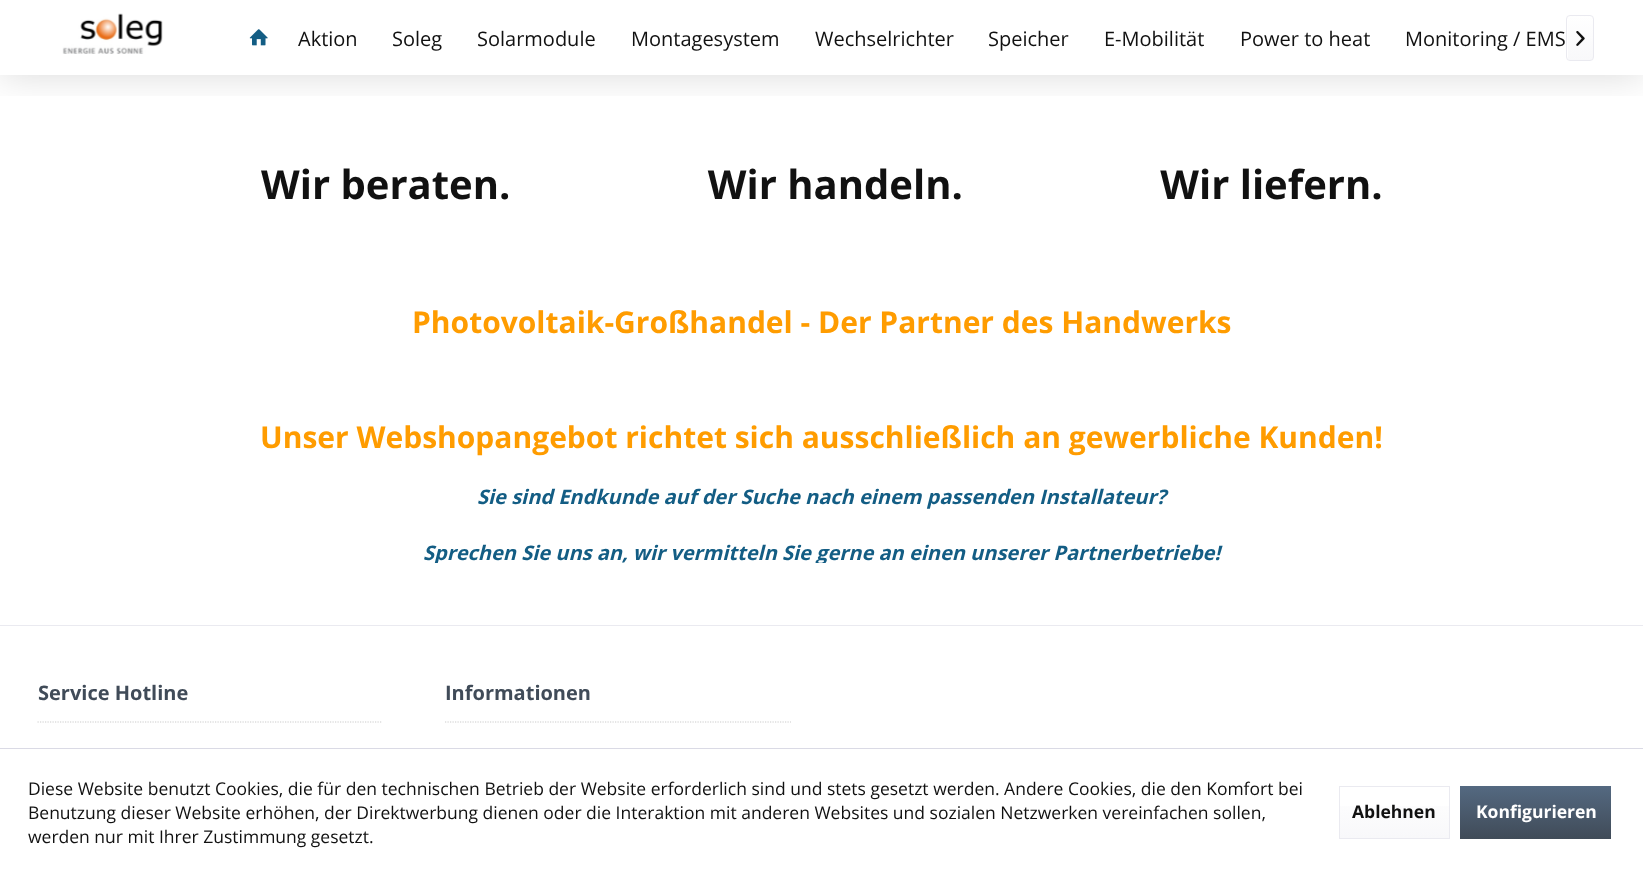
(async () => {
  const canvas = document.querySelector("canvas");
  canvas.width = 1643;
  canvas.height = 875;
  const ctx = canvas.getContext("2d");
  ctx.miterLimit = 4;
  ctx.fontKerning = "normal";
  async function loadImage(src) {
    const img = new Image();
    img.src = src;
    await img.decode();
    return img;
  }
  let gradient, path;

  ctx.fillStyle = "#ffffff";
  ctx.fillRect(0, 0, 1643, 875);
  ctx.save();
  ctx.beginPath();
  ctx.rect(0, 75, 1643, 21);
  ctx.clip();
  ctx.fillStyle = "rgba(0, 0, 0, 0.15)";
  ctx.filter = "blur(19px)";
  ctx.beginPath();
  ctx.rect(0, 0, 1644, 75);
  ctx.fill();
  ctx.filter = "none";
  ctx.restore();
  ctx.drawImage(await loadImage("img/1.png"), 62, 13, 101, 41);
  ctx.drawImage(await loadImage("img/2.png"), 249, 29, 19, 17);
  gradient = ctx.createLinearGradient(1580, 16, 1580, 60);
  gradient.addColorStop(0, "#ffffff");
  gradient.addColorStop(1, "#f8f8fa");
  ctx.fillStyle = gradient;
  ctx.beginPath();
  ctx.roundRect(1568, 16, 25, 44, 2.5);
  ctx.fill();
  ctx.beginPath();
  ctx.roundRect(1566.5, 15.5, 27, 45, 3.5);
  ctx.strokeStyle = "#eaeaf0";
  ctx.stroke();
  ctx.drawImage(await loadImage("img/3.png"), 1576, 31, 9, 15);
  ctx.fillStyle = "#eaeaf0";
  ctx.fillRect(0, 625, 1643, 1);
  path = new Path2D("M37.5 722H382.5");
  ctx.strokeStyle = "#cccccc";
  ctx.lineWidth = 1.2;
  ctx.setLineDash([1.25, 1.25]);
  ctx.stroke(path);
  path = new Path2D("M445 722H791");
  ctx.stroke(path);
  ctx.fillStyle = "#dadae5";
  ctx.fillRect(0, 748, 1643, 1);
  gradient = ctx.createLinearGradient(1394, 788, 1394, 838);
  gradient.addColorStop(0, "#ffffff");
  gradient.addColorStop(1, "#f8f8fa");
  ctx.fillStyle = gradient;
  ctx.fillRect(1340, 806, 109, 32);
  ctx.strokeStyle = "#eaeaf0";
  ctx.lineWidth = 1;
  ctx.setLineDash([]);
  ctx.strokeRect(1339.5, 786.5, 110, 52);
  gradient = ctx.createLinearGradient(1536, 786, 1536, 839);
  gradient.addColorStop(0, "#546981");
  gradient.addColorStop(1, "#404b58");
  ctx.fillStyle = gradient;
  ctx.fillRect(1460, 786, 151, 53);
  ctx.font = "20px Open Sans";
  ctx.fillStyle = "#111111";
  for (const [text, x, y] of [
    ["Aktion", 298, 46],
    ["Soleg", 392, 46],
    ["Solarmodule", 477, 46],
    ["Montagesystem", 631, 46],
    ["Wechselrichter", 815, 46],
    ["Speicher", 988, 46],
    ["E-Mobilität", 1104, 46],
    ["Power to heat", 1240, 46],
    ["Monitoring / EMS", 1405, 46],
  ]) {
    ctx.fillText(text, x, y);
  }
  ctx.font = "bold 40px Open Sans";
  ctx.fillText("Wir beraten.                   Wir handeln.                   Wir liefern.", 261, 199);
  ctx.font = "bold 30px Open Sans";
  ctx.fillStyle = "#ff9c00";
  ctx.fillText("Photovoltaik-Großhandel - Der Partner des Handwerks", 412, 333);
  ctx.fillText("Unser Webshopangebot richtet sich ausschließlich an gewerbliche Kunden!", 260, 448);
  ctx.font = "italic bold 20px Open Sans";
  ctx.fillStyle = "#135d84";
  ctx.fillText("Sie sind Endkunde auf der Suche nach einem passenden Installateur?", 477, 504);
  ctx.save();
  ctx.beginPath();
  ctx.rect(38, 300, 1568, 263);
  ctx.clip();
  ctx.fillText("Sprechen Sie uns an, wir vermitteln Sie gerne an einen unserer Partnerbetriebe!", 423, 560);
  ctx.restore();
  ctx.font = "bold 20px Open Sans";
  ctx.fillStyle = "#404b58";
  ctx.fillText("Service Hotline", 38, 700);
  ctx.fillText("Informationen", 445, 700);
  ctx.font = "17.5px Open Sans";
  ctx.fillStyle = "#111111";
  for (const [text, x, y] of [
    ["Diese Website benutzt Cookies, die für den technischen Betrieb der Website erforderlich sind und stets gesetzt werden. Andere Cookies, die den Komfort bei", 28, 795],
    ["Benutzung dieser Website erhöhen, der Direktwerbung dienen oder die Interaktion mit anderen Websites und sozialen Netzwerken vereinfachen sollen,", 28, 819],
    ["werden nur mit Ihrer Zustimmung gesetzt.", 28, 843],
  ]) {
    ctx.fillText(text, x, y);
  }
  ctx.font = "bold 17.5px Open Sans";
  ctx.fillText("Ablehnen", 1352, 818);
  ctx.fillStyle = "#ffffff";
  ctx.fillText("Konfigurieren", 1476, 818);
})();
